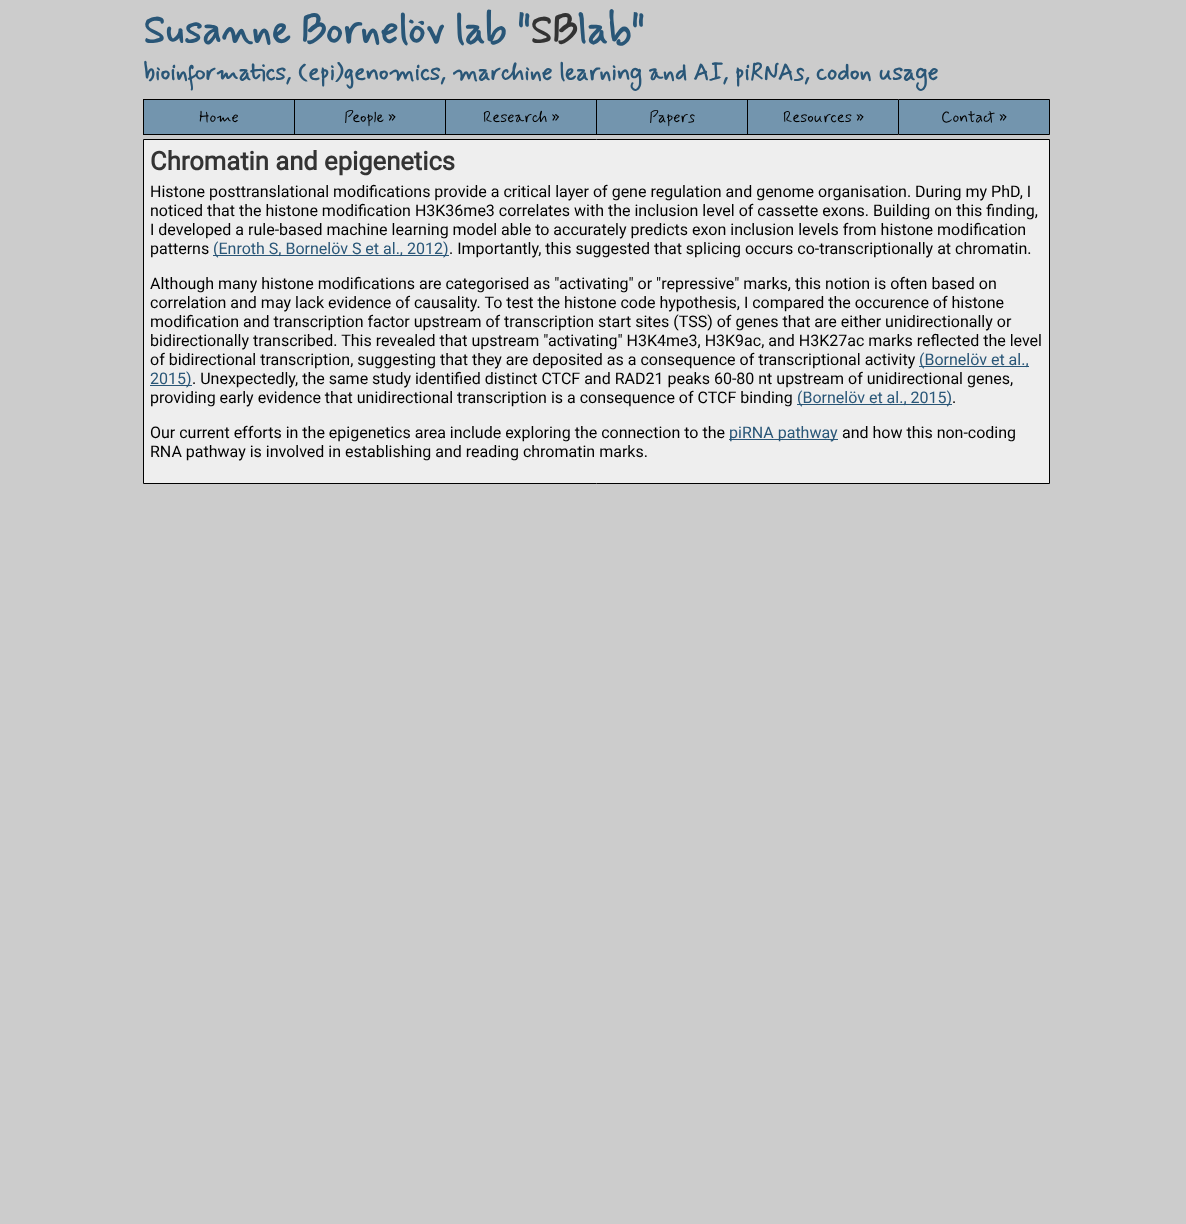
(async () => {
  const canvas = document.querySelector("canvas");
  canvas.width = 1186;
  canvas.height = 1224;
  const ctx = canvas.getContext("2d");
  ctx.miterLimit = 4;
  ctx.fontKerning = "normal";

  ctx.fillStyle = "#cccccc";
  ctx.fillRect(0, 0, 1186, 1224);
  for (const [x, y, w, h, color] of [
    [144, 100, 150, 34, "#7395ae"],
    [143, 99, 755, 1, "#000000"],
    [143, 134, 755, 1, "#000000"],
    [143, 99, 1, 36, "#000000"],
    [295, 100, 150, 34, "#7395ae"],
    [294, 99, 1, 36, "#000000"],
    [446, 100, 150, 34, "#7395ae"],
    [445, 99, 1, 36, "#000000"],
    [597, 100, 150, 34, "#7395ae"],
    [596, 99, 1, 36, "#000000"],
    [748, 100, 150, 34, "#7395ae"],
    [747, 99, 1, 36, "#000000"],
  ]) {
    ctx.fillStyle = color;
    ctx.fillRect(x, y, w, h);
  }
  ctx.fillStyle = "#7395ae";
  ctx.beginPath();
  ctx.rect(898.5, 99.5, 151, 35);
  ctx.fill();
  ctx.strokeStyle = "#000000";
  ctx.stroke();
  ctx.fillStyle = "#eeeeee";
  ctx.beginPath();
  ctx.rect(143.5, 139.5, 906, 344);
  ctx.fill();
  ctx.stroke();
  for (const [x, y, w, h, color] of [
    [213, 255, 236, 1, "#295677"],
    [919, 366, 110, 1, "#295677"],
    [150, 385, 42, 1, "#295677"],
    [797, 404, 155, 1, "#295677"],
    [729, 439, 109, 1, "#295677"],
  ]) {
    ctx.fillStyle = color;
    ctx.fillRect(x, y, w, h);
  }
  ctx.font = "bold 40px Mynerve";
  ctx.fillText("Susanne Bornelöv lab \"", 143, 43);
  ctx.fillStyle = "#333333";
  ctx.fillText("SB", 530, 43);
  ctx.fillStyle = "#295677";
  ctx.fillText("lab\"", 577, 43);
  ctx.font = "bold 24px Mynerve";
  ctx.fillText("bioinformatics, (epi)genomics, marchine learning and AI, piRNAs, codon usage", 143, 80);
  ctx.font = "16px Mynerve";
  ctx.fillStyle = "#000000";
  for (const [text, x, y] of [
    ["Home", 199, 122],
    ["People »", 344, 122],
    ["Research »", 483, 122],
    ["Papers", 649, 122],
    ["Resources »", 783, 122],
    ["Contact »", 941, 122],
  ]) {
    ctx.fillText(text, x, y);
  }
  ctx.font = "bold 25.6px Roboto";
  ctx.fillStyle = "#333333";
  ctx.fillText("Chromatin and epigenetics", 150, 170);
  ctx.font = "16px Roboto";
  ctx.fillStyle = "#000000";
  for (const [text, x, y] of [
    ["Histone posttranslational modifications provide a critical layer of gene regulation and genome organisation. During my PhD, I", 150, 197],
    ["noticed that the histone modification H3K36me3 correlates with the inclusion level of cassette exons. Building on this finding,", 150, 216],
    ["I developed a rule-based machine learning model able to accurately predicts exon inclusion levels from histone modification", 150, 235],
    ["patterns", 150, 254],
  ]) {
    ctx.fillText(text, x, y);
  }
  ctx.fillStyle = "#295677";
  ctx.fillText("(Enroth S, Bornelöv S et al., 2012)", 213, 254);
  ctx.fillStyle = "#000000";
  for (const [text, x, y] of [
    [". Importantly, this suggested that splicing occurs co-transcriptionally at chromatin.", 449, 254],
    ["Although many histone modifications are categorised as \"activating\" or \"repressive\" marks, this notion is often based on", 150, 289],
    ["correlation and may lack evidence of causality. To test the histone code hypothesis, I compared the occurence of histone", 150, 308],
    ["modification and transcription factor upstream of transcription start sites (TSS) of genes that are either unidirectionally or", 150, 327],
    ["bidirectionally transcribed. This revealed that upstream \"activating\" H3K4me3, H3K9ac, and H3K27ac marks reflected the level", 150, 346],
    ["of bidirectional transcription, suggesting that they are deposited as a consequence of transcriptional activity", 150, 365],
  ]) {
    ctx.fillText(text, x, y);
  }
  ctx.fillStyle = "#295677";
  ctx.fillText("(Bornelöv et al.,", 919, 365);
  ctx.fillText("2015)", 150, 384);
  ctx.fillStyle = "#000000";
  ctx.fillText(". Unexpectedly, the same study identified distinct CTCF and RAD21 peaks 60-80 nt upstream of unidirectional genes,", 192, 384);
  ctx.fillText("providing early evidence that unidirectional transcription is a consequence of CTCF binding", 150, 403);
  ctx.fillStyle = "#295677";
  ctx.fillText("(Bornelöv et al., 2015)", 797, 403);
  ctx.fillStyle = "#000000";
  ctx.fillText(".", 952, 403);
  ctx.fillText("Our current efforts in the epigenetics area include exploring the connection to the", 150, 438);
  ctx.fillStyle = "#295677";
  ctx.fillText("piRNA pathway", 729, 438);
  ctx.fillStyle = "#000000";
  ctx.fillText("and how this non-coding", 842, 438);
  ctx.fillText("RNA pathway is involved in establishing and reading chromatin marks.", 150, 457);
})();
